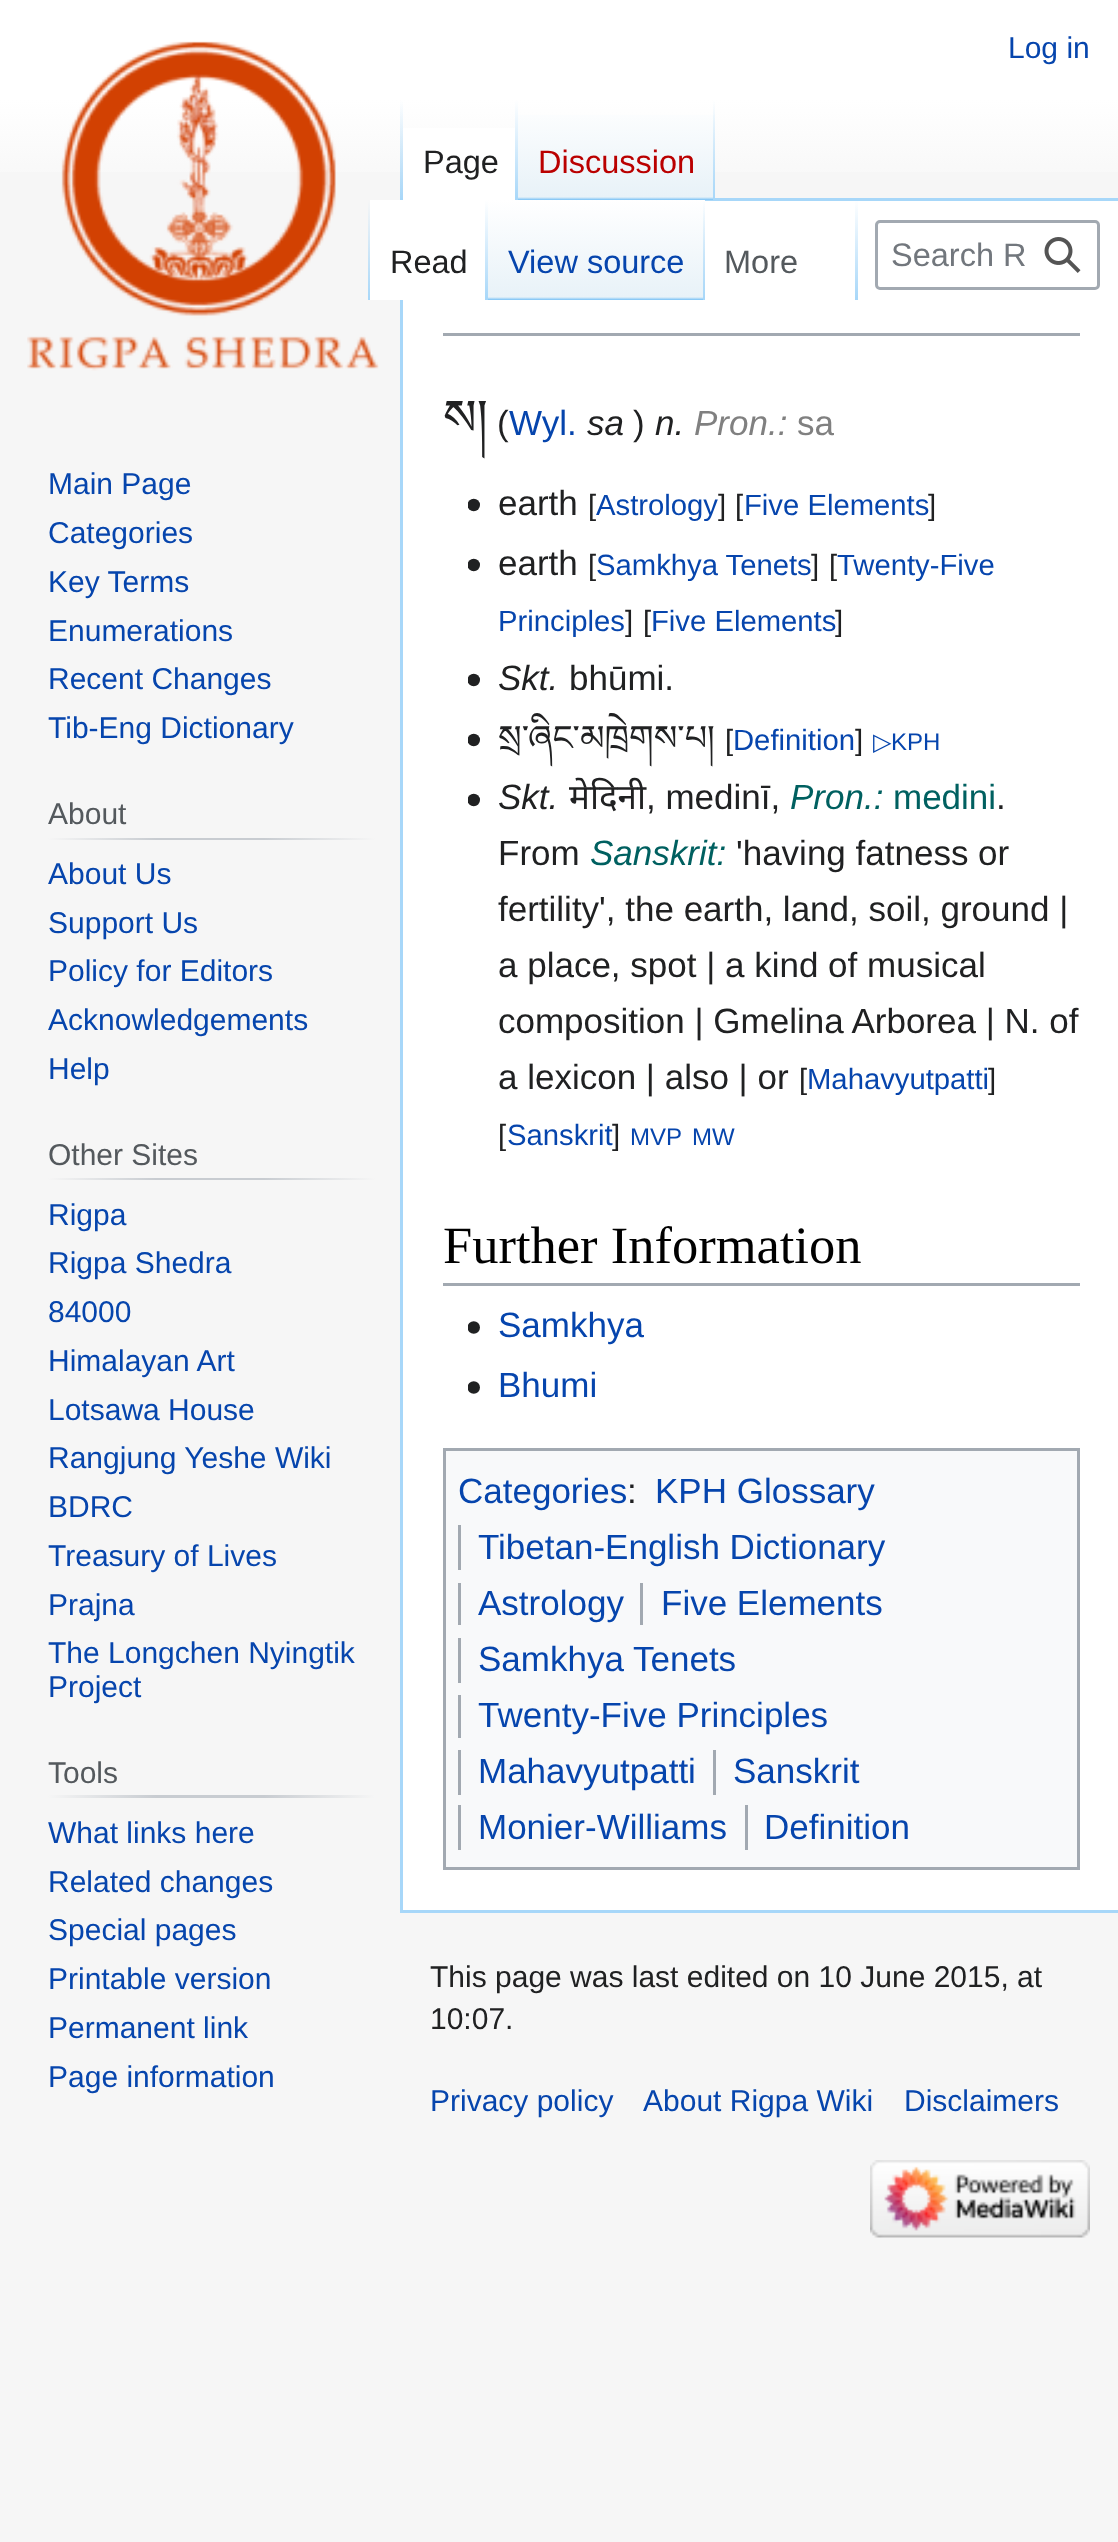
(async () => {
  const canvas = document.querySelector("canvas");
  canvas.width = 1118;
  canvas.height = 2542;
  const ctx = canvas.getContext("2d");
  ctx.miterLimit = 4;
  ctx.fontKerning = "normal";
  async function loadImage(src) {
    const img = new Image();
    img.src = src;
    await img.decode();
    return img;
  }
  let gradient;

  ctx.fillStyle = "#f6f6f6";
  ctx.fillRect(0, 0, 1118, 2542);
  gradient = ctx.createLinearGradient(560, 0, 560, 200);
  gradient.addColorStop(0.5, "#ffffff");
  gradient.addColorStop(1, "#f6f6f6");
  ctx.fillStyle = gradient;
  ctx.fillRect(0, 0, 1118, 172);
  ctx.fillStyle = "#a7d7f9";
  ctx.fillRect(400, 1910, 718, 3);
  ctx.fillRect(400, 198, 3, 1715);
  gradient = ctx.createLinearGradient(401, 100, 401, 200);
  gradient.addColorStop(0, "rgba(167, 215, 249, 0)");
  gradient.addColorStop(1, "#a7d7f9");
  ctx.fillStyle = gradient;
  ctx.fillRect(400, 100, 3, 100);
  ctx.fillStyle = "#ffffff";
  ctx.fillRect(403, 128, 112, 72);
  gradient = ctx.createLinearGradient(516, 100, 516, 200);
  gradient.addColorStop(0, "#ffffff");
  gradient.addColorStop(1, "#a7d7f9");
  ctx.fillStyle = gradient;
  ctx.fillRect(515, 100, 3, 100);
  ctx.fillStyle = "#a7d7f9";
  ctx.fillRect(705, 198, 413, 3);
  gradient = ctx.createLinearGradient(616, 200, 616, 100);
  gradient.addColorStop(0, "#77c1f6");
  gradient.addColorStop(0.03, "#e8f2f8");
  gradient.addColorStop(1, "#ffffff");
  ctx.fillStyle = gradient;
  ctx.fillRect(518, 115, 197, 85);
  gradient = ctx.createLinearGradient(714, 100, 714, 200);
  gradient.addColorStop(0, "rgba(167, 215, 249, 0)");
  gradient.addColorStop(1, "#a7d7f9");
  ctx.fillStyle = gradient;
  ctx.fillRect(713, 100, 2, 100);
  gradient = ctx.createLinearGradient(369, 200, 369, 300);
  gradient.addColorStop(0, "#f6f6f6");
  gradient.addColorStop(1, "#a7d7f9");
  ctx.fillStyle = gradient;
  ctx.fillRect(368, 200, 2, 100);
  ctx.fillStyle = "#ffffff";
  ctx.fillRect(403, 201, 715, 1709);
  ctx.fillRect(370, 200, 115, 100);
  gradient = ctx.createLinearGradient(486, 200, 486, 300);
  gradient.addColorStop(0, "#ffffff");
  gradient.addColorStop(1, "#a7d7f9");
  ctx.fillStyle = gradient;
  ctx.fillRect(485, 200, 3, 100);
  gradient = ctx.createLinearGradient(596, 300, 596, 200);
  gradient.addColorStop(0, "#77c1f6");
  gradient.addColorStop(0.03, "#e8f2f8");
  gradient.addColorStop(1, "#ffffff");
  ctx.fillStyle = gradient;
  ctx.fillRect(488, 200, 217, 100);
  gradient = ctx.createLinearGradient(704, 200, 704, 300);
  gradient.addColorStop(0, "rgba(167, 215, 249, 0)");
  gradient.addColorStop(1, "#a7d7f9");
  ctx.fillStyle = gradient;
  ctx.fillRect(703, 200, 2, 100);
  gradient = ctx.createLinearGradient(856, 200, 856, 300);
  gradient.addColorStop(0, "rgba(167, 215, 249, 0)");
  gradient.addColorStop(1, "#a7d7f9");
  ctx.fillStyle = gradient;
  ctx.fillRect(855, 200, 3, 100);
  ctx.beginPath();
  ctx.roundRect(876.5, 221.5, 222, 67, 3.5);
  ctx.strokeStyle = "#a2a9b1";
  ctx.lineWidth = 3;
  ctx.stroke();
  ctx.drawImage(await loadImage("img/1.png"), 1044, 237, 37, 36);
  ctx.drawImage(await loadImage("img/2.png"), 27, 41, 352, 330);
  gradient = ctx.createLinearGradient(48, 839, 375, 839);
  gradient.addColorStop(0, "#f6f6f6");
  gradient.addColorStop(0.33, "#c8ccd1");
  gradient.addColorStop(0.66, "#c8ccd1");
  gradient.addColorStop(1, "#f6f6f6");
  ctx.fillStyle = gradient;
  ctx.fillRect(48, 838, 327, 2);
  gradient = ctx.createLinearGradient(48, 1179, 375, 1179);
  gradient.addColorStop(0, "#f6f6f6");
  gradient.addColorStop(0.33, "#c8ccd1");
  gradient.addColorStop(0.66, "#c8ccd1");
  gradient.addColorStop(1, "#f6f6f6");
  ctx.fillStyle = gradient;
  ctx.fillRect(48, 1178, 327, 2);
  gradient = ctx.createLinearGradient(48, 1796, 375, 1796);
  gradient.addColorStop(0, "#f6f6f6");
  gradient.addColorStop(0.33, "#c8ccd1");
  gradient.addColorStop(0.66, "#c8ccd1");
  gradient.addColorStop(1, "#f6f6f6");
  ctx.fillStyle = gradient;
  ctx.fillRect(48, 1795, 327, 3);
  ctx.fillStyle = "#a2a9b1";
  ctx.fillRect(443, 333, 637, 3);
  ctx.drawImage(await loadImage("img/3.png"), 468, 498, 12, 14);
  ctx.drawImage(await loadImage("img/4.png"), 468, 558, 12, 14);
  ctx.drawImage(await loadImage("img/4.png"), 468, 673, 12, 14);
  ctx.drawImage(await loadImage("img/4.png"), 468, 733, 12, 14);
  ctx.drawImage(await loadImage("img/4.png"), 468, 793, 12, 14);
  ctx.fillRect(443, 1283, 637, 3);
  ctx.drawImage(await loadImage("img/5.png"), 468, 1321, 12, 13);
  ctx.drawImage(await loadImage("img/5.png"), 468, 1381, 12, 13);
  ctx.fillStyle = "#f8f9fa";
  ctx.beginPath();
  ctx.rect(444.5, 1449.5, 634, 419);
  ctx.fill();
  ctx.stroke();
  for (const [x, y, w, h, color] of [
    [458, 1525, 3, 45, "#a2a9b1"],
    [458, 1583, 3, 42, "#a2a9b1"],
    [640, 1583, 3, 42, "#a2a9b1"],
    [458, 1638, 3, 45, "#a2a9b1"],
    [458, 1695, 3, 43, "#a2a9b1"],
    [458, 1750, 3, 45, "#a2a9b1"],
    [713, 1750, 3, 45, "#a2a9b1"],
    [458, 1805, 3, 45, "#a2a9b1"],
    [745, 1805, 3, 45, "#a2a9b1"],
  ]) {
    ctx.fillStyle = color;
    ctx.fillRect(x, y, w, h);
  }
  ctx.drawImage(await loadImage("img/6.png"), 870, 2160, 220, 78);
  ctx.font = "30px Liberation Sans";
  ctx.fillStyle = "#0645ad";
  ctx.fillText("Log in", 1008, 58);
  ctx.font = "32.5px Liberation Sans";
  ctx.fillStyle = "#202122";
  ctx.fillText("Page", 423, 173);
  ctx.fillStyle = "#ba0000";
  ctx.fillText("Discussion", 538, 173);
  ctx.fillStyle = "#202122";
  ctx.fillText("Read", 390, 273);
  ctx.fillStyle = "#0645ad";
  ctx.fillText("View source", 508, 273);
  ctx.fillStyle = "#54595d";
  ctx.fillText("More", 724, 273);
  ctx.fillStyle = "#72777d";
  ctx.fillText("Search R", 891, 266);
  ctx.font = "30px Liberation Sans";
  ctx.fillStyle = "#0645ad";
  for (const [text, x, y] of [
    ["Main Page", 48, 494],
    ["Categories", 48, 543],
    ["Key Terms", 48, 592],
    ["Enumerations", 48, 641],
    ["Recent Changes", 48, 689],
    ["Tib-Eng Dictionary", 48, 738],
  ]) {
    ctx.fillText(text, x, y);
  }
  ctx.fillStyle = "#54595d";
  ctx.fillText("About", 48, 824);
  ctx.fillStyle = "#0645ad";
  for (const [text, x, y] of [
    ["About Us", 48, 884],
    ["Support Us", 48, 933],
    ["Policy for Editors", 48, 981],
    ["Acknowledgements", 48, 1030],
    ["Help", 48, 1079],
  ]) {
    ctx.fillText(text, x, y);
  }
  ctx.fillStyle = "#54595d";
  ctx.fillText("Other Sites", 48, 1165);
  ctx.fillStyle = "#0645ad";
  for (const [text, x, y] of [
    ["Rigpa", 48, 1225],
    ["Rigpa Shedra", 48, 1273],
    ["84000", 48, 1322],
    ["Himalayan Art", 48, 1371],
    ["Lotsawa House", 48, 1420],
    ["Rangjung Yeshe Wiki", 48, 1468],
    ["BDRC", 48, 1517],
    ["Treasury of Lives", 48, 1566],
    ["Prajna", 48, 1615],
    ["The Longchen Nyingtik", 48, 1663],
    ["Project", 48, 1697],
  ]) {
    ctx.fillText(text, x, y);
  }
  ctx.fillStyle = "#54595d";
  ctx.fillText("Tools", 48, 1783);
  ctx.fillStyle = "#0645ad";
  for (const [text, x, y] of [
    ["What links here", 48, 1843],
    ["Related changes", 48, 1892],
    ["Special pages", 48, 1940],
    ["Printable version", 48, 1989],
    ["Permanent link", 48, 2038],
    ["Page information", 48, 2087],
  ]) {
    ctx.fillText(text, x, y);
  }
  ctx.font = "50px Noto Serif Tibetan";
  ctx.fillStyle = "#202122";
  ctx.fillText("ས།", 443, 435);
  ctx.font = "35px Liberation Sans";
  ctx.fillText("(", 497, 435);
  ctx.fillStyle = "#0645ad";
  ctx.fillText("Wyl.", 509, 435);
  ctx.font = "italic 35px Liberation Sans";
  ctx.fillStyle = "#202122";
  ctx.fillText("sa", 587, 435);
  ctx.font = "35px Liberation Sans";
  ctx.fillText(")", 633, 435);
  ctx.font = "italic 35px Liberation Sans";
  ctx.fillText("n.", 655, 435);
  ctx.fillStyle = "#808080";
  ctx.fillText("Pron.:", 694, 435);
  ctx.font = "35px Liberation Sans";
  ctx.fillText("sa", 797, 435);
  ctx.fillStyle = "#202122";
  ctx.fillText("earth", 498, 515);
  ctx.font = "29.25px Liberation Sans";
  ctx.fillText("[", 588, 515);
  ctx.fillStyle = "#0645ad";
  ctx.fillText("Astrology", 596, 515);
  ctx.fillStyle = "#202122";
  ctx.fillText("]", 718, 515);
  ctx.fillText("[", 735, 515);
  ctx.fillStyle = "#0645ad";
  ctx.fillText("Five Elements", 744, 515);
  ctx.fillStyle = "#202122";
  ctx.fillText("]", 928, 515);
  ctx.font = "35px Liberation Sans";
  ctx.fillText("earth", 498, 575);
  ctx.font = "29.25px Liberation Sans";
  ctx.fillText("[", 588, 575);
  ctx.fillStyle = "#0645ad";
  ctx.fillText("Samkhya Tenets", 596, 575);
  ctx.fillStyle = "#202122";
  ctx.fillText("]", 811, 575);
  ctx.fillText("[", 829, 575);
  ctx.fillStyle = "#0645ad";
  ctx.fillText("Twenty-Five", 837, 575);
  ctx.fillText("Principles", 498, 631);
  ctx.fillStyle = "#202122";
  ctx.fillText("]", 625, 631);
  ctx.fillText("[", 643, 631);
  ctx.fillStyle = "#0645ad";
  ctx.fillText("Five Elements", 651, 631);
  ctx.fillStyle = "#202122";
  ctx.fillText("]", 835, 631);
  ctx.font = "italic 35px Liberation Sans";
  ctx.fillText("Skt.", 498, 690);
  ctx.font = "35px Liberation Sans";
  ctx.fillText("bhūmi.", 569, 690);
  ctx.font = "35px Noto Serif Tibetan";
  ctx.fillText("སྲ་ཞིང་མཁྲེགས་པ།", 498, 750);
  ctx.font = "29.25px Liberation Sans";
  ctx.fillText("[", 725, 750);
  ctx.fillStyle = "#0645ad";
  ctx.fillText("Definition", 733, 750);
  ctx.fillStyle = "#202122";
  ctx.fillText("]", 855, 750);
  ctx.font = "24px DejaVu Sans";
  ctx.fillStyle = "#0645ad";
  ctx.fillText("▷", 873, 750);
  ctx.font = "24px Liberation Sans";
  ctx.fillText("KPH", 891, 750);
  ctx.font = "italic 35px Liberation Sans";
  ctx.fillStyle = "#202122";
  ctx.fillText("Skt.", 498, 809);
  ctx.font = "35px Noto Sans";
  ctx.fillText("मेदिनी", 569, 809);
  ctx.font = "35px Liberation Sans";
  ctx.fillText(", medinī,", 646, 809);
  ctx.font = "italic 35px Liberation Sans";
  ctx.fillStyle = "#006060";
  ctx.fillText("Pron.:", 790, 809);
  ctx.font = "35px Liberation Sans";
  ctx.fillText("medini", 893, 809);
  ctx.fillStyle = "#202122";
  ctx.fillText(".", 996, 809);
  ctx.fillText("From", 498, 865);
  ctx.font = "italic 35px Liberation Sans";
  ctx.fillStyle = "#006060";
  ctx.fillText("Sanskrit:", 590, 865);
  ctx.font = "35px Liberation Sans";
  ctx.fillStyle = "#202122";
  for (const [text, x, y] of [
    ["'having fatness or", 736, 865],
    ["fertility', the earth, land, soil, ground |", 498, 921],
    ["a place, spot | a kind of musical", 498, 977],
    ["composition | Gmelina Arborea | N. of", 498, 1033],
    ["a lexicon | also | or", 498, 1089],
  ]) {
    ctx.fillText(text, x, y);
  }
  ctx.font = "29.25px Liberation Sans";
  ctx.fillText("[", 799, 1089);
  ctx.fillStyle = "#0645ad";
  ctx.fillText("Mahavyutpatti", 807, 1089);
  ctx.fillStyle = "#202122";
  ctx.fillText("]", 988, 1089);
  ctx.fillText("[", 498, 1145);
  ctx.fillStyle = "#0645ad";
  ctx.fillText("Sanskrit", 507, 1145);
  ctx.fillStyle = "#202122";
  ctx.fillText("]", 612, 1145);
  ctx.font = "24px Liberation Sans";
  ctx.fillStyle = "#0645ad";
  ctx.fillText("MVP", 630, 1145);
  ctx.fillText("MW", 692, 1145);
  ctx.font = "52.5px Liberation Serif";
  ctx.fillStyle = "#000000";
  ctx.fillText("Further Information", 443, 1263);
  ctx.font = "35px Liberation Sans";
  ctx.fillStyle = "#0645ad";
  for (const [text, x, y] of [
    ["Samkhya", 498, 1337],
    ["Bhumi", 498, 1397],
    ["Categories", 458, 1503],
    ["KPH Glossary", 655, 1503],
    ["Tibetan-English Dictionary", 478, 1559],
    ["Astrology", 478, 1615],
    ["Five Elements", 661, 1615],
    ["Samkhya Tenets", 478, 1671],
    ["Twenty-Five Principles", 478, 1727],
    ["Mahavyutpatti", 478, 1783],
    ["Sanskrit", 733, 1783],
    ["Monier-Williams", 478, 1839],
    ["Definition", 764, 1839],
  ]) {
    ctx.fillText(text, x, y);
  }
  ctx.fillStyle = "#202122";
  ctx.fillText(":", 627, 1503);
  ctx.font = "30px Liberation Sans";
  ctx.fillText("This page was last edited on 10 June 2015, at", 430, 1987);
  ctx.fillText("10:07.", 430, 2029);
  ctx.fillStyle = "#0645ad";
  for (const [text, x, y] of [
    ["Privacy policy", 430, 2111],
    ["About Rigpa Wiki", 643, 2111],
    ["Disclaimers", 904, 2111],
  ]) {
    ctx.fillText(text, x, y);
  }
})();
